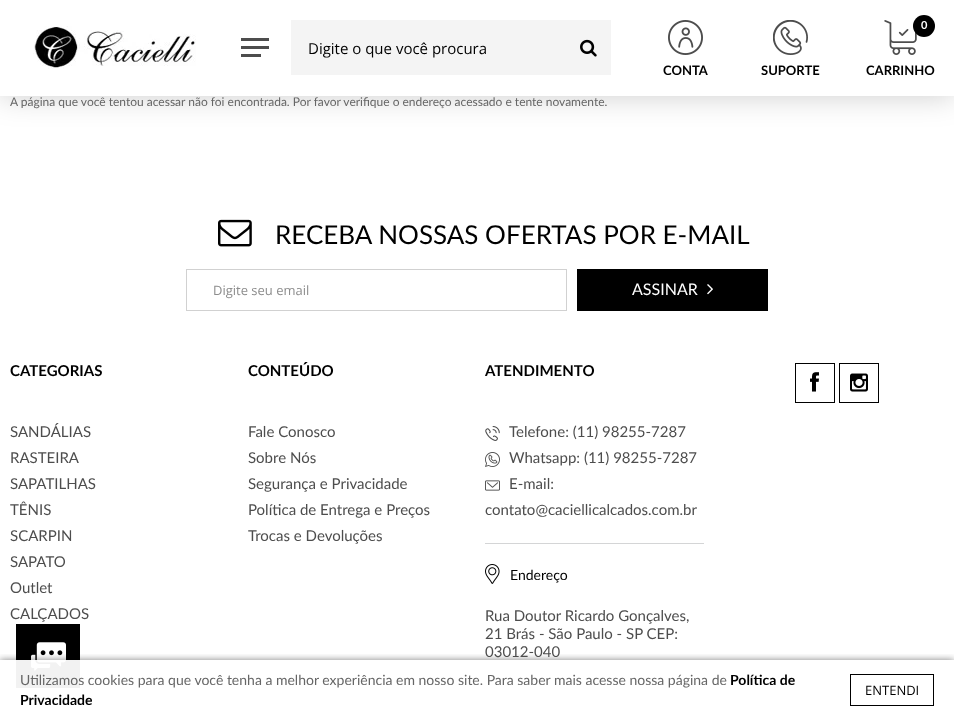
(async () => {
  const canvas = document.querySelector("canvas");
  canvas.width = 954;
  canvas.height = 720;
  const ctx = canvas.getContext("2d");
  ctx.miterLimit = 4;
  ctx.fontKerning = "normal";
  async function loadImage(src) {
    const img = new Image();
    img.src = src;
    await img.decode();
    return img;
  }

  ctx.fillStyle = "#ffffff";
  ctx.fillRect(0, 0, 954, 720);
  ctx.fillStyle = "rgba(0, 0, 0, 0.2)";
  ctx.filter = "blur(15px)";
  ctx.beginPath();
  ctx.rect(0, 0, 954, 96);
  ctx.fill();
  ctx.filter = "none";
  ctx.fillStyle = "#ffffff";
  ctx.fillRect(0, 0, 954, 96);
  ctx.drawImage(await loadImage("img/1.png"), 33, 26, 163, 43);
  for (const [x, y, w, h, color] of [
    [241, 38, 28, 3, "#4d4d4d"],
    [241, 46, 28, 3, "#4d4d4d"],
    [241, 54, 20, 3, "#4d4d4d"],
    [291, 20, 320, 55, "#f4f4f4"],
  ]) {
    ctx.fillStyle = color;
    ctx.fillRect(x, y, w, h);
  }
  ctx.drawImage(await loadImage("img/2.png"), 580, 39, 17, 18);
  ctx.drawImage(await loadImage("img/3.png"), 668, 20, 35, 35);
  ctx.drawImage(await loadImage("img/4.png"), 773, 20, 35, 35);
  ctx.drawImage(await loadImage("img/5.png"), 884, 20, 33, 35);
  ctx.fillStyle = "#000000";
  ctx.beginPath();
  ctx.arc(924, 26, 11, 0, Math.PI * 2);
  ctx.fill();
  ctx.drawImage(await loadImage("img/6.png"), 218, 219, 34, 28);
  ctx.strokeStyle = "#d1d1d1";
  ctx.strokeRect(186.5, 269.5, 380, 41);
  ctx.fillRect(577, 269, 191, 42);
  ctx.drawImage(await loadImage("img/7.png"), 707, 284, 6, 11);
  ctx.fillStyle = "#d4d5d6";
  ctx.fillRect(485, 543, 219, 1);
  ctx.drawImage(await loadImage("img/8.png"), 485, 426, 15, 15);
  ctx.drawImage(await loadImage("img/9.png"), 485, 452, 15, 15);
  ctx.drawImage(await loadImage("img/10.png"), 485, 480, 15, 11);
  ctx.drawImage(await loadImage("img/11.png"), 485, 564, 15, 20);
  ctx.strokeStyle = "#000000";
  ctx.strokeRect(795.5, 363.5, 39, 39);
  ctx.drawImage(await loadImage("img/12.png"), 810, 372, 9, 20);
  ctx.strokeRect(839.5, 363.5, 39, 39);
  ctx.drawImage(await loadImage("img/13.png"), 850, 373, 18, 19);
  ctx.fillStyle = "#000000";
  ctx.fillRect(16, 624, 64, 64);
  ctx.drawImage(await loadImage("img/14.png"), 31, 642, 35, 29);
  ctx.save();
  ctx.beginPath();
  ctx.rect(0, 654, 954, 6);
  ctx.clip();
  ctx.fillStyle = "rgba(0, 0, 0, 0.5)";
  ctx.filter = "blur(3.5px)";
  ctx.beginPath();
  ctx.rect(0, 660, 954, 60);
  ctx.fill();
  ctx.filter = "none";
  ctx.restore();
  ctx.fillStyle = "rgba(255, 255, 255, 0.95)";
  ctx.fillRect(16, 660, 64, 28);
  ctx.strokeRect(850.5, 674.5, 83, 31);
  ctx.font = "15px Open Sans";
  ctx.fillStyle = "#000000";
  ctx.fillText("Digite o que você procura", 308, 54);
  ctx.font = "bold 13px Lato";
  ctx.fillText("CONTA", 663, 75);
  ctx.fillText("SUPORTE", 761, 75);
  ctx.font = "bold 11px Lato";
  ctx.fillStyle = "#ffffff";
  ctx.fillText("0", 921, 29);
  ctx.font = "bold 13px Lato";
  ctx.fillStyle = "#000000";
  ctx.fillText("CARRINHO", 866, 75);
  ctx.font = "12px Lato";
  ctx.fillStyle = "#666666";
  ctx.fillText("A página que você tentou acessar não foi encontrada. Por favor verifique o endereço acessado e tente novamente.", 10, 106);
  ctx.font = "26px Lato";
  ctx.fillStyle = "#000000";
  ctx.fillText("RECEBA NOSSAS OFERTAS POR E-MAIL", 275, 244);
  ctx.font = "13px Open Sans";
  ctx.fillStyle = "#8d8d8d";
  ctx.fillText("Digite seu email", 213, 295);
  ctx.font = "16px Lato";
  ctx.fillStyle = "#ffffff";
  ctx.fillText("ASSINAR", 632, 295);
  ctx.font = "bold 15px Lato";
  ctx.fillStyle = "#000000";
  ctx.fillText("CATEGORIAS", 10, 376);
  ctx.font = "15px Lato";
  ctx.fillStyle = "#4d4d4d";
  for (const [text, x, y] of [
    ["SANDÁLIAS", 10, 437],
    ["RASTEIRA", 10, 463],
    ["SAPATILHAS", 10, 489],
    ["TÊNIS", 10, 515],
    ["SCARPIN", 10, 541],
    ["SAPATO", 10, 567],
    ["Outlet", 10, 593],
    ["CALÇADOS", 10, 619],
  ]) {
    ctx.fillText(text, x, y);
  }
  ctx.font = "bold 15px Lato";
  ctx.fillStyle = "#000000";
  ctx.fillText("CONTEÚDO", 248, 376);
  ctx.font = "15px Lato";
  ctx.fillStyle = "#4d4d4d";
  for (const [text, x, y] of [
    ["Fale Conosco", 248, 437],
    ["Sobre Nós", 248, 463],
    ["Segurança e Privacidade", 248, 489],
    ["Política de Entrega e Preços", 248, 515],
    ["Trocas e Devoluções", 248, 541],
  ]) {
    ctx.fillText(text, x, y);
  }
  ctx.font = "bold 15px Lato";
  ctx.fillStyle = "#000000";
  ctx.fillText("ATENDIMENTO", 485, 376);
  ctx.font = "15px Lato";
  ctx.fillStyle = "#4d4d4d";
  for (const [text, x, y] of [
    ["Telefone: (11) 98255-7287", 509, 437],
    ["Whatsapp: (11) 98255-7287", 509, 463],
    ["E-mail:", 509, 489],
    ["contato@caciellicalcados.com.br", 485, 515],
  ]) {
    ctx.fillText(text, x, y);
  }
  ctx.font = "14px Lato";
  ctx.fillStyle = "#000000";
  ctx.fillText("Endereço", 510, 580);
  ctx.font = "15px Lato";
  ctx.fillStyle = "#4d4d4d";
  for (const [text, x, y] of [
    ["Rua Doutor Ricardo Gonçalves,", 485, 621],
    ["21 Brás - São Paulo - SP CEP:", 485, 639],
    ["03012-040", 485, 657],
  ]) {
    ctx.fillText(text, x, y);
  }
  ctx.font = "14px Lato";
  ctx.fillStyle = "#666666";
  ctx.fillText("Utilizamos cookies para que você tenha a melhor experiência em nosso site. Para saber mais acesse nossa página de", 20, 685);
  ctx.font = "bold 14px Lato";
  ctx.fillStyle = "#000000";
  ctx.fillText("Política de", 730, 685);
  ctx.fillText("Privacidade", 20, 705);
  ctx.font = "13px Open Sans";
  ctx.fillText("ENTENDI", 865, 695);
})();
